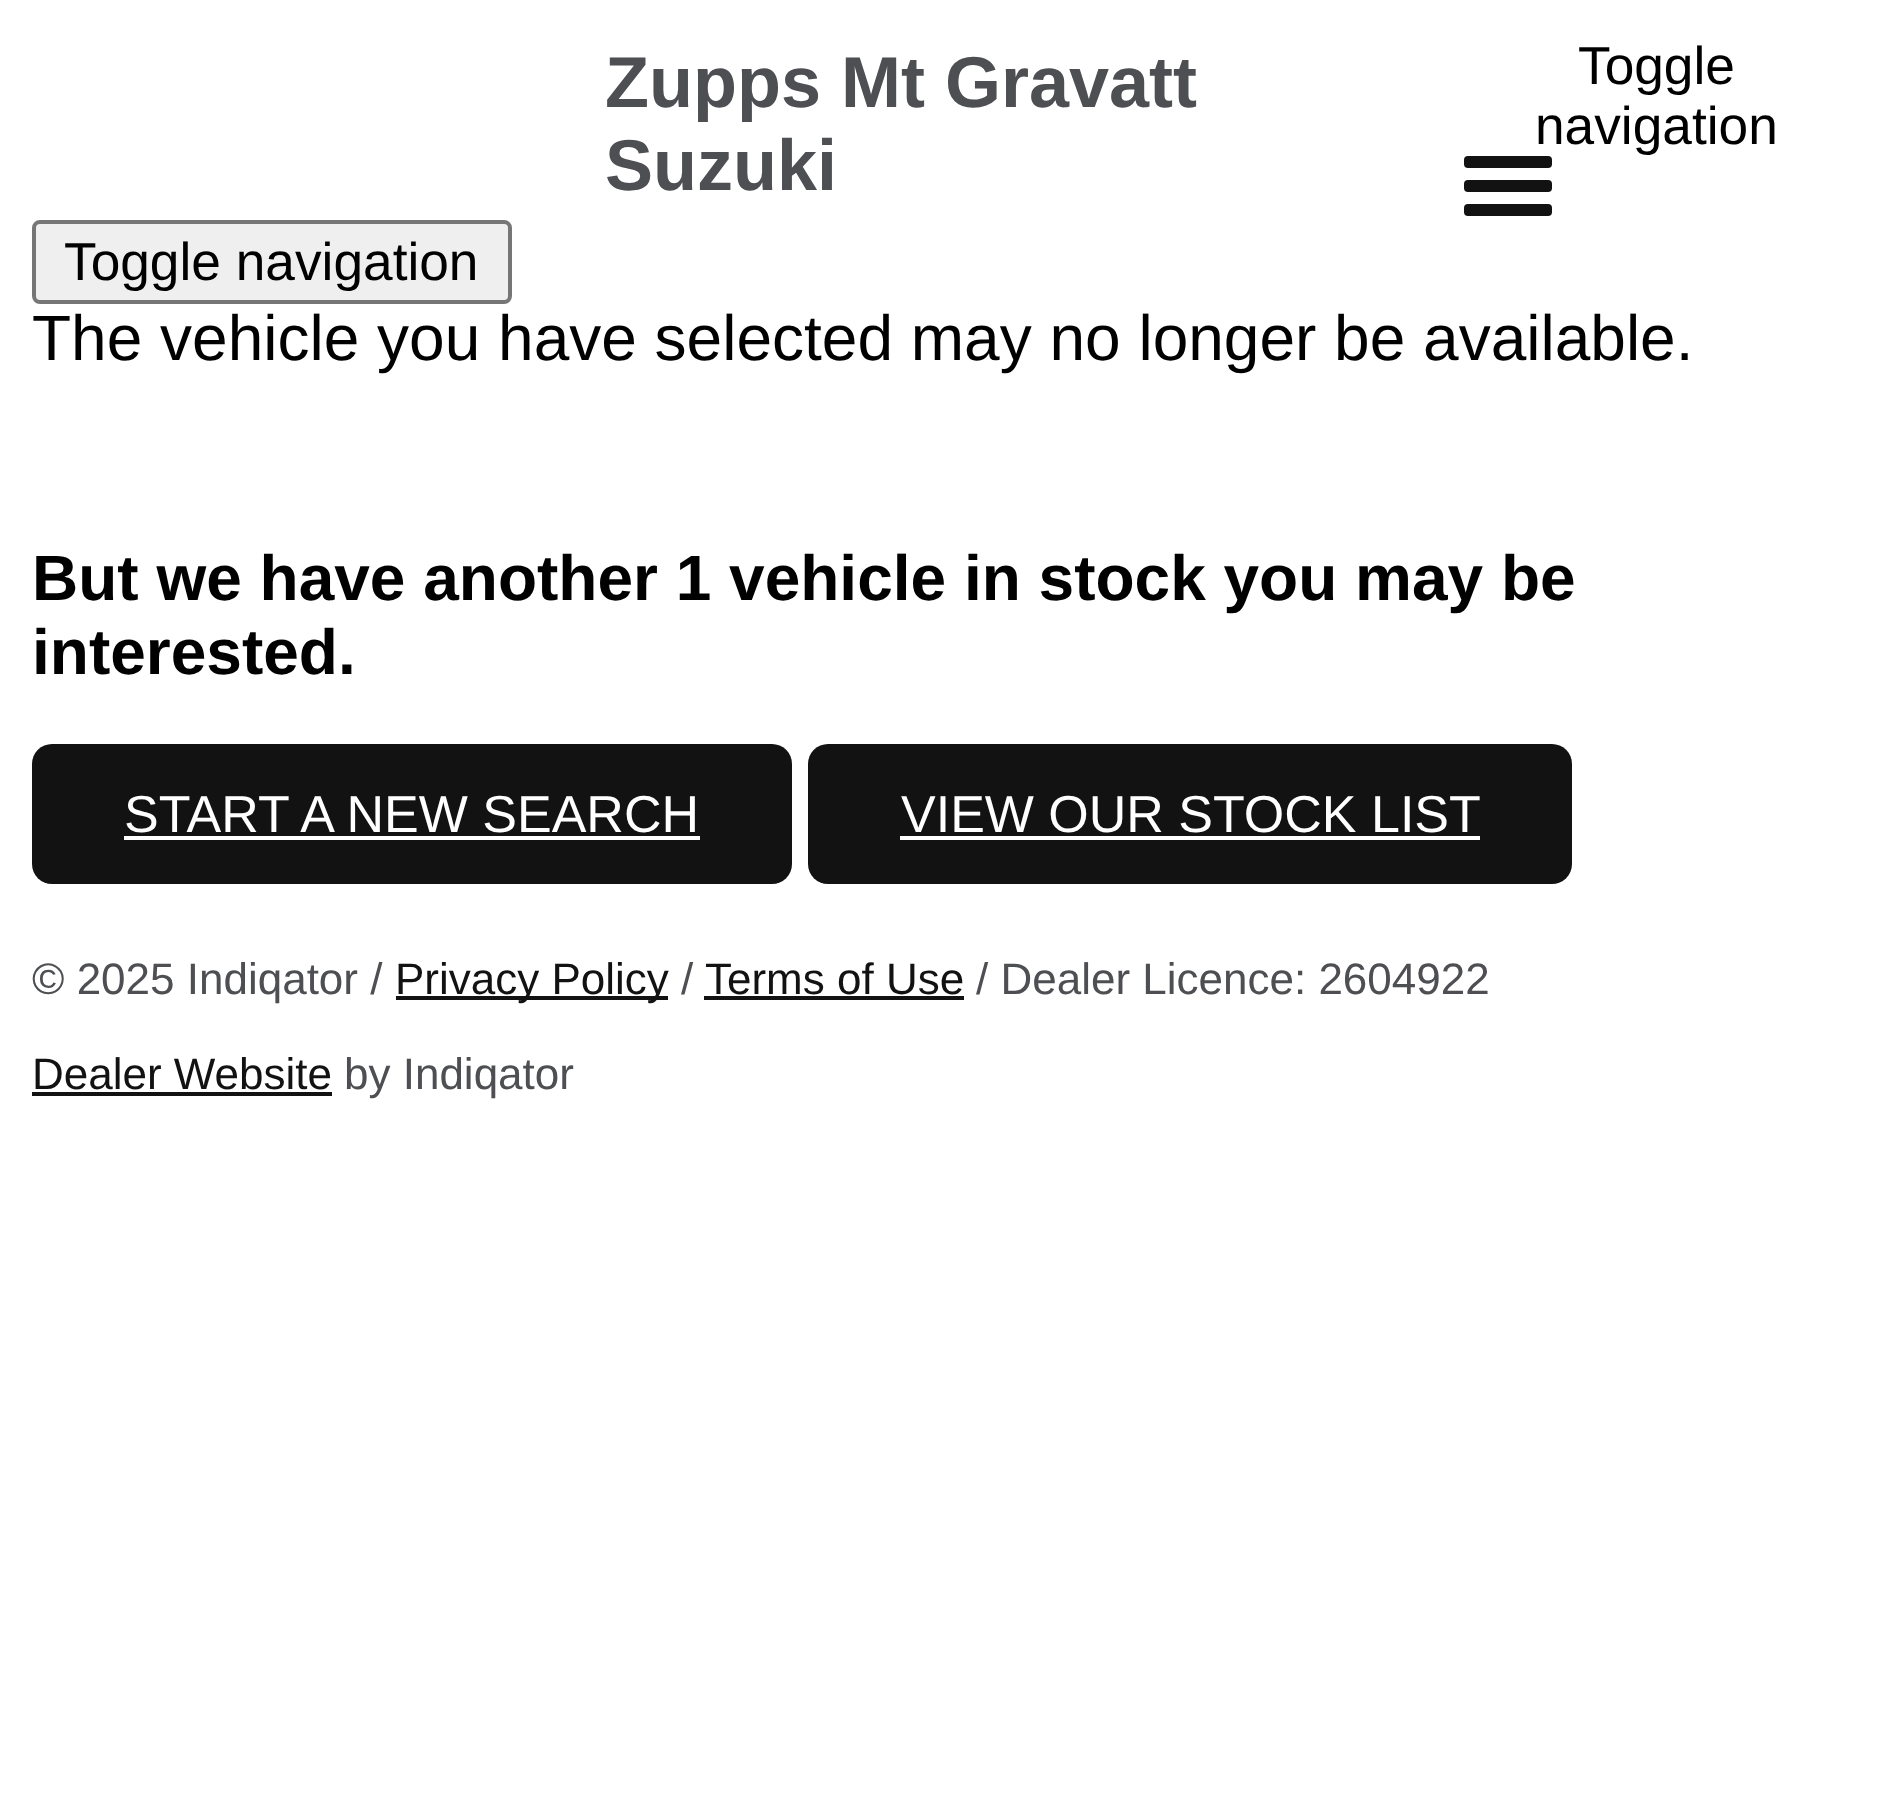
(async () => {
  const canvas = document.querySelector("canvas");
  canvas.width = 1902;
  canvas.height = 1803;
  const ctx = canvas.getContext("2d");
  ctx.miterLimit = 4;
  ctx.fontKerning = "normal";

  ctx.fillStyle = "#ffffff";
  ctx.fillRect(0, 0, 1902, 1803);
  ctx.fillStyle = "#121212";
  ctx.beginPath();
  ctx.roundRect(1464, 156, 88, 12, 4);
  ctx.fill();
  ctx.beginPath();
  ctx.roundRect(1464, 180, 88, 12, 4);
  ctx.fill();
  ctx.beginPath();
  ctx.roundRect(1464, 204, 88, 12, 4);
  ctx.fill();
  ctx.fillStyle = "#efefef";
  ctx.beginPath();
  ctx.roundRect(34, 222, 476, 80, 6);
  ctx.fill();
  ctx.strokeStyle = "#767676";
  ctx.lineWidth = 4;
  ctx.stroke();
  ctx.fillStyle = "#121212";
  ctx.beginPath();
  ctx.roundRect(32, 744, 92, 140, [20, 0, 0, 20]);
  ctx.fill();
  ctx.fillRect(124, 744, 576, 140);
  ctx.beginPath();
  ctx.roundRect(700, 744, 92, 140, [0, 20, 20, 0]);
  ctx.fill();
  ctx.fillStyle = "#ffffff";
  ctx.fillRect(124, 836, 576, 4);
  ctx.fillStyle = "#121212";
  ctx.beginPath();
  ctx.roundRect(808, 744, 92, 140, [20, 0, 0, 20]);
  ctx.fill();
  ctx.fillRect(900, 744, 580, 140);
  ctx.beginPath();
  ctx.roundRect(1480, 744, 92, 140, [0, 20, 20, 0]);
  ctx.fill();
  for (const [x, y, w, h, color] of [
    [900, 836, 580, 4, "#ffffff"],
    [396, 996, 272, 4, "#121212"],
    [704, 996, 260, 4, "#121212"],
    [32, 1092, 300, 4, "#121212"],
  ]) {
    ctx.fillStyle = color;
    ctx.fillRect(x, y, w, h);
  }
  ctx.font = "bold 72px Liberation Sans";
  ctx.fillStyle = "#4d4f53";
  ctx.fillText("Zupps Mt Gravatt", 605, 107);
  ctx.fillText("Suzuki", 605, 190);
  ctx.font = "53.25px Liberation Sans";
  ctx.fillStyle = "#000000";
  for (const [text, x, y] of [
    ["Toggle", 1578, 84],
    ["navigation", 1535, 144],
    ["Toggle navigation", 64, 280],
  ]) {
    ctx.fillText(text, x, y);
  }
  ctx.font = "64px Liberation Sans";
  ctx.fillText("The vehicle you have selected may no longer be available.", 32, 360);
  ctx.font = "bold 64px Liberation Sans";
  ctx.fillText("But we have another 1 vehicle in stock you may be", 32, 600);
  ctx.fillText("interested.", 32, 674);
  ctx.font = "52px Liberation Sans";
  ctx.fillStyle = "#ffffff";
  ctx.fillText("START A NEW SEARCH", 124, 832);
  ctx.fillText("VIEW OUR STOCK LIST", 901, 832);
  ctx.font = "44px Liberation Sans";
  ctx.fillStyle = "#4d4f53";
  ctx.fillText("© 2025 Indiqator /", 32, 994);
  ctx.fillStyle = "#121212";
  ctx.fillText("Privacy Policy", 395, 994);
  ctx.fillStyle = "#4d4f53";
  ctx.fillText("/", 681, 994);
  ctx.fillStyle = "#121212";
  ctx.fillText("Terms of Use", 705, 994);
  ctx.fillStyle = "#4d4f53";
  ctx.fillText("/ Dealer Licence: 2604922", 976, 994);
  ctx.fillStyle = "#121212";
  ctx.fillText("Dealer Website", 32, 1089);
  ctx.fillStyle = "#4d4f53";
  ctx.fillText("by Indiqator", 344, 1089);
})();
